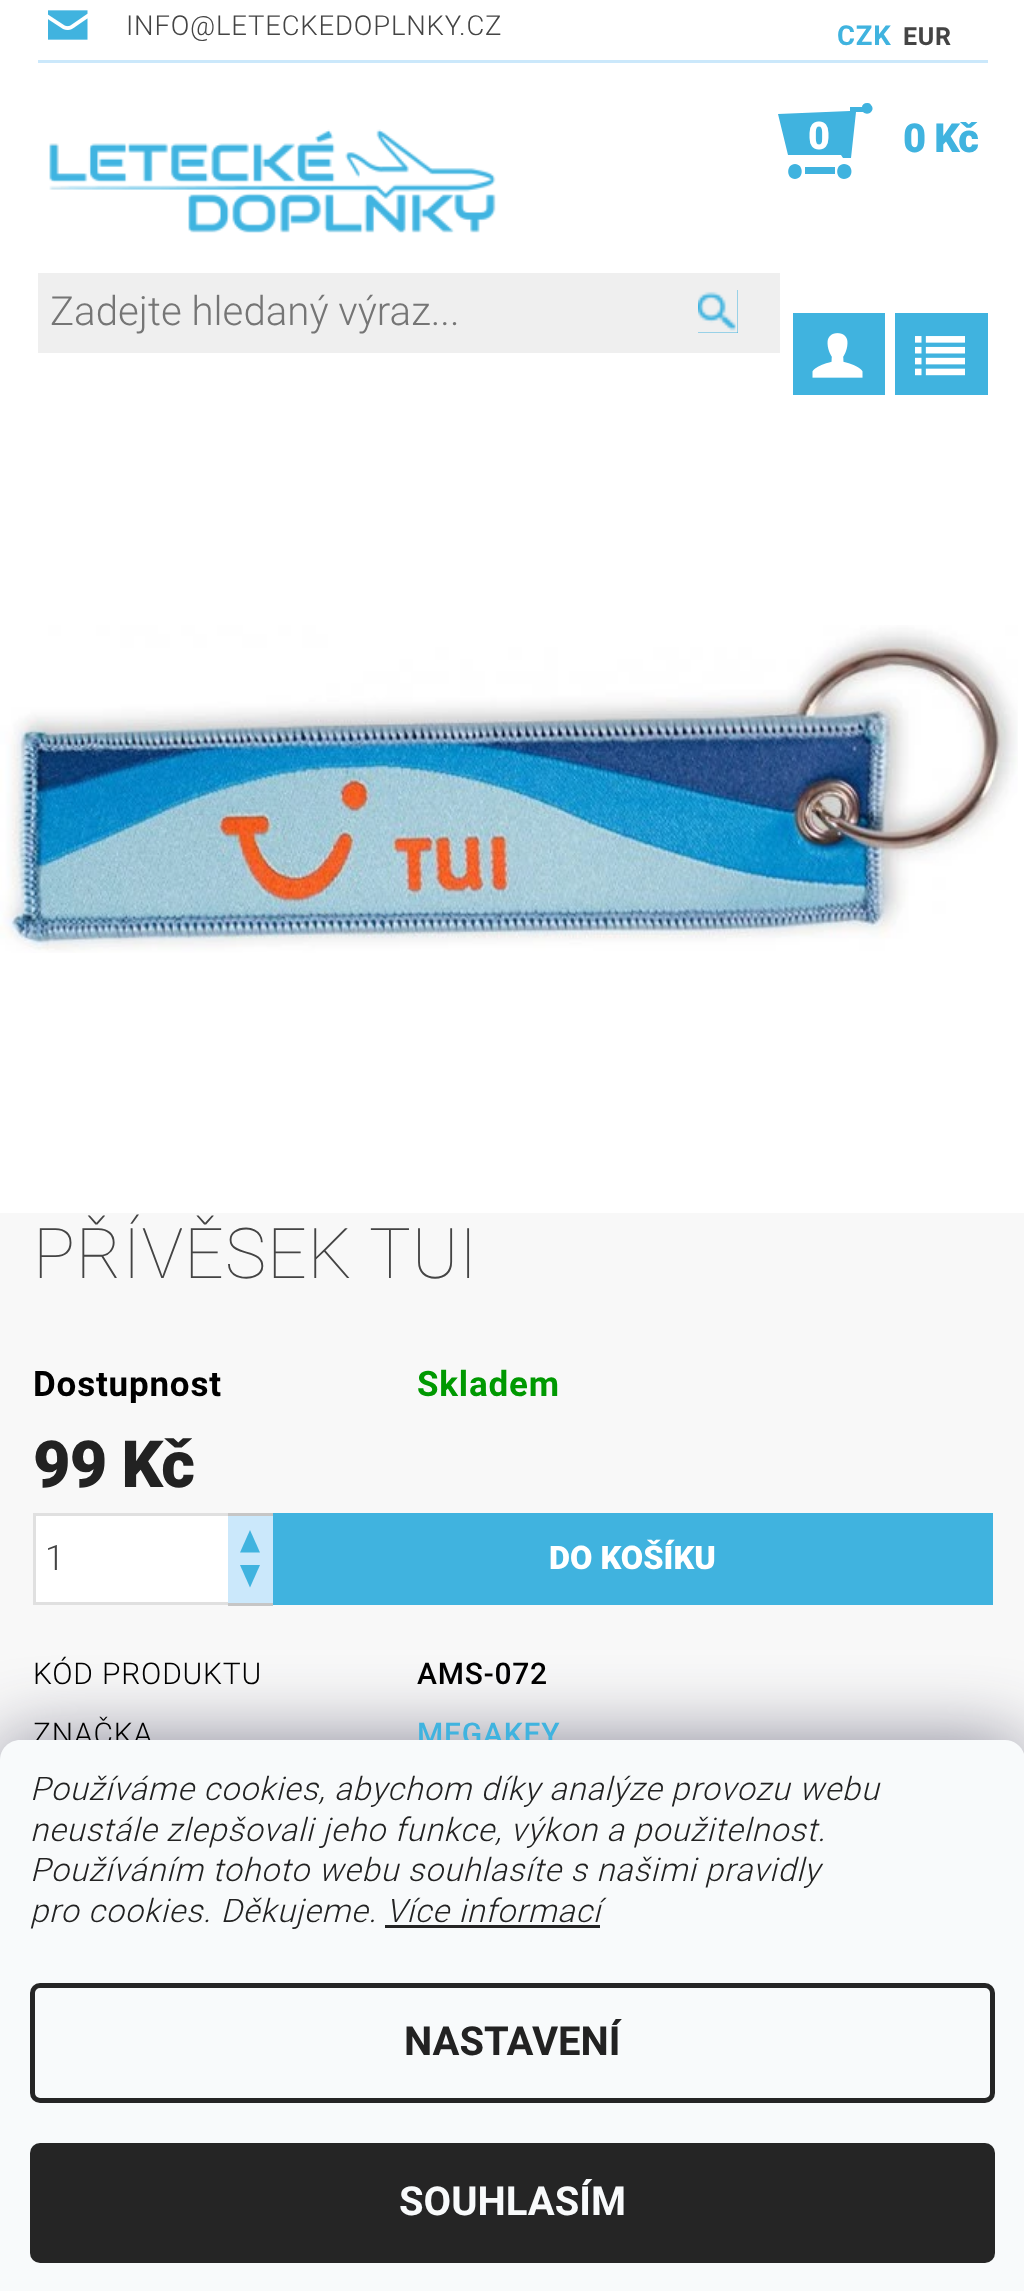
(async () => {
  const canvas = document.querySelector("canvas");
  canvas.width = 1024;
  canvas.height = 2291;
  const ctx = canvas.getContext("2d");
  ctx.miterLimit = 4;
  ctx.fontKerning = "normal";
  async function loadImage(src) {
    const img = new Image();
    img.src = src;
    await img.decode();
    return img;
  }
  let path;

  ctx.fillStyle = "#ffffff";
  ctx.fillRect(0, 0, 1024, 2291);
  ctx.fillStyle = "#cbe8fb";
  ctx.fillRect(38, 60, 950, 3);
  ctx.drawImage(await loadImage("img/1.png"), 48, 10, 40, 30);
  ctx.drawImage(await loadImage("img/2.png"), 49, 129, 447, 104);
  ctx.fillStyle = "#40b3df";
  path = new Path2D("M805 174H835V167H805ZM795 164C786 164 786 179 795 179C804 179 804 164 795 164ZM844 164C835 164 835 179 844 179C854 179 854 164 844 164ZM867 103C864 103 862 105 862 107H850V111L778 114L788 155H841L843 158H851L856 112H863C868 117 876 110 871 105C870 103 868 103 867 103Z");
  ctx.fill(path);
  ctx.fillStyle = "#efefef";
  ctx.fillRect(38, 273, 742, 80);
  ctx.fillStyle = "#40b3df";
  ctx.fillRect(698, 290, 40, 43);
  ctx.drawImage(await loadImage("img/3.png"), 698, 290, 40, 43);
  ctx.fillRect(793, 313, 92, 82);
  ctx.drawImage(await loadImage("img/4.png"), 812, 333, 51, 45);
  ctx.fillRect(895, 313, 93, 82);
  ctx.drawImage(await loadImage("img/5.png"), 915, 336, 50, 40);
  ctx.drawImage(await loadImage("img/6.png"), 0, 625, 1018, 328);
  ctx.fillStyle = "#f8f8f8";
  ctx.fillRect(0, 1213, 1024, 547);
  ctx.fillStyle = "#ffffff";
  ctx.fillRect(36, 1516, 192, 86);
  ctx.strokeStyle = "#e0e0e0";
  ctx.lineWidth = 3;
  ctx.strokeRect(34.5, 1514.5, 207, 89);
  ctx.fillStyle = "#cbe8fb";
  ctx.fillRect(228, 1516, 45, 87);
  ctx.fillStyle = "#c6c6c6";
  ctx.fillRect(228, 1513, 45, 3);
  ctx.fillStyle = "#40b3df";
  path = new Path2D("M260 1552.5H240L250 1530Z");
  ctx.fill(path);
  ctx.fillStyle = "#c6c6c6";
  ctx.fillRect(228, 1603, 45, 3);
  ctx.fillStyle = "#40b3df";
  path = new Path2D("M240 1565H260L250 1587.5Z");
  ctx.fill(path);
  ctx.fillRect(273, 1513, 720, 92);
  ctx.fillStyle = "rgba(27, 25, 57, 0.5)";
  ctx.filter = "blur(37.5px)";
  ctx.beginPath();
  ctx.roundRect(0, 1740, 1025, 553, 20);
  ctx.fill();
  ctx.filter = "none";
  ctx.letterSpacing = "0.8px";
  ctx.font = "300 27.5px Roboto";
  ctx.fillStyle = "#444444";
  ctx.fillText("INFO@LETECKEDOPLNKY.CZ", 126, 35);
  ctx.font = "bold 27.5px Roboto";
  ctx.fillStyle = "#40b3df";
  ctx.fillText("CZK", 837, 45);
  ctx.font = "bold 25px Roboto";
  ctx.fillStyle = "#444444";
  ctx.fillText("EUR", 903, 45);
  ctx.letterSpacing = "-1px";
  ctx.font = "900 38px Roboto";
  ctx.fillStyle = "#ffffff";
  ctx.fillText("0", 808, 149);
  ctx.font = "900 40px Roboto";
  ctx.fillStyle = "#40b3df";
  ctx.fillText("0 Kč", 903, 152);
  ctx.letterSpacing = "0px";
  ctx.font = "300 40.25px Roboto";
  ctx.fillStyle = "#757575";
  ctx.fillText("Zadejte hledaný výraz...", 50, 325);
  ctx.letterSpacing = "0.8px";
  ctx.font = "100 70px Roboto";
  ctx.fillStyle = "#444444";
  ctx.fillText("PŘÍVĚSEK TUI", 33, 1278);
  ctx.font = "bold 35px Roboto";
  ctx.fillStyle = "#000000";
  ctx.fillText("Dostupnost", 33, 1396);
  ctx.fillStyle = "#009901";
  ctx.fillText("Skladem", 417, 1396);
  ctx.letterSpacing = "-1px";
  ctx.font = "900 65px Roboto";
  ctx.fillStyle = "#222222";
  ctx.fillText("99 Kč", 33, 1487);
  ctx.letterSpacing = "0px";
  ctx.font = "300 35px Roboto";
  ctx.fillStyle = "#444444";
  ctx.fillText("1", 45, 1570);
  ctx.font = "900 32.5px Roboto";
  ctx.fillStyle = "#ffffff";
  ctx.fillText("DO KOŠÍKU", 549, 1569);
  ctx.letterSpacing = "0.8px";
  ctx.font = "300 30px Roboto";
  ctx.fillStyle = "#000000";
  ctx.fillText("KÓD PRODUKTU", 33, 1684);
  ctx.font = "500 30px Roboto";
  ctx.fillText("AMS-072", 417, 1684);
  ctx.font = "300 30px Roboto";
  ctx.fillText("ZNAČKA", 33, 1744);
  ctx.font = "500 30px Roboto";
  ctx.fillStyle = "#40b3df";
  ctx.fillText("MEGAKEY", 417, 1744);
  ctx.fillStyle = "#f8fafb";
  path = new Path2D("M20 1740H1005C1016 1740 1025 1749 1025 1760V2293H0V1760C0 1749 9 1740 20 1740Z");
  ctx.fill(path);
  ctx.font = "italic 300 32.5px Roboto";
  ctx.fillStyle = "#222222";
  for (const [text, x, y] of [
    ["Používáme cookies, abychom díky analýze provozu webu", 30, 1800],
    ["neustále zlepšovali jeho funkce, výkon a použitelnost.", 30, 1841],
    ["Používáním tohoto webu souhlasíte s našimi pravidly", 30, 1881],
    ["pro cookies. Děkujeme. Více informací", 30, 1922],
  ]) {
    ctx.fillText(text, x, y);
  }
  ctx.fillStyle = "#252525";
  ctx.fillRect(385, 1925, 215, 3);
  ctx.beginPath();
  ctx.roundRect(32.5, 1985.5, 960, 115, 7.5);
  ctx.strokeStyle = "#252525";
  ctx.lineWidth = 5;
  ctx.stroke();
  ctx.letterSpacing = "0px";
  ctx.font = "bold 40px Roboto";
  ctx.fillStyle = "#222222";
  ctx.fillText("NASTAVENÍ", 404, 2055);
  ctx.fillStyle = "#252525";
  ctx.beginPath();
  ctx.roundRect(30, 2143, 965, 120, 10);
  ctx.fill();
  ctx.fillStyle = "#f8fafb";
  ctx.fillText("SOUHLASÍM", 399, 2215);
})();
